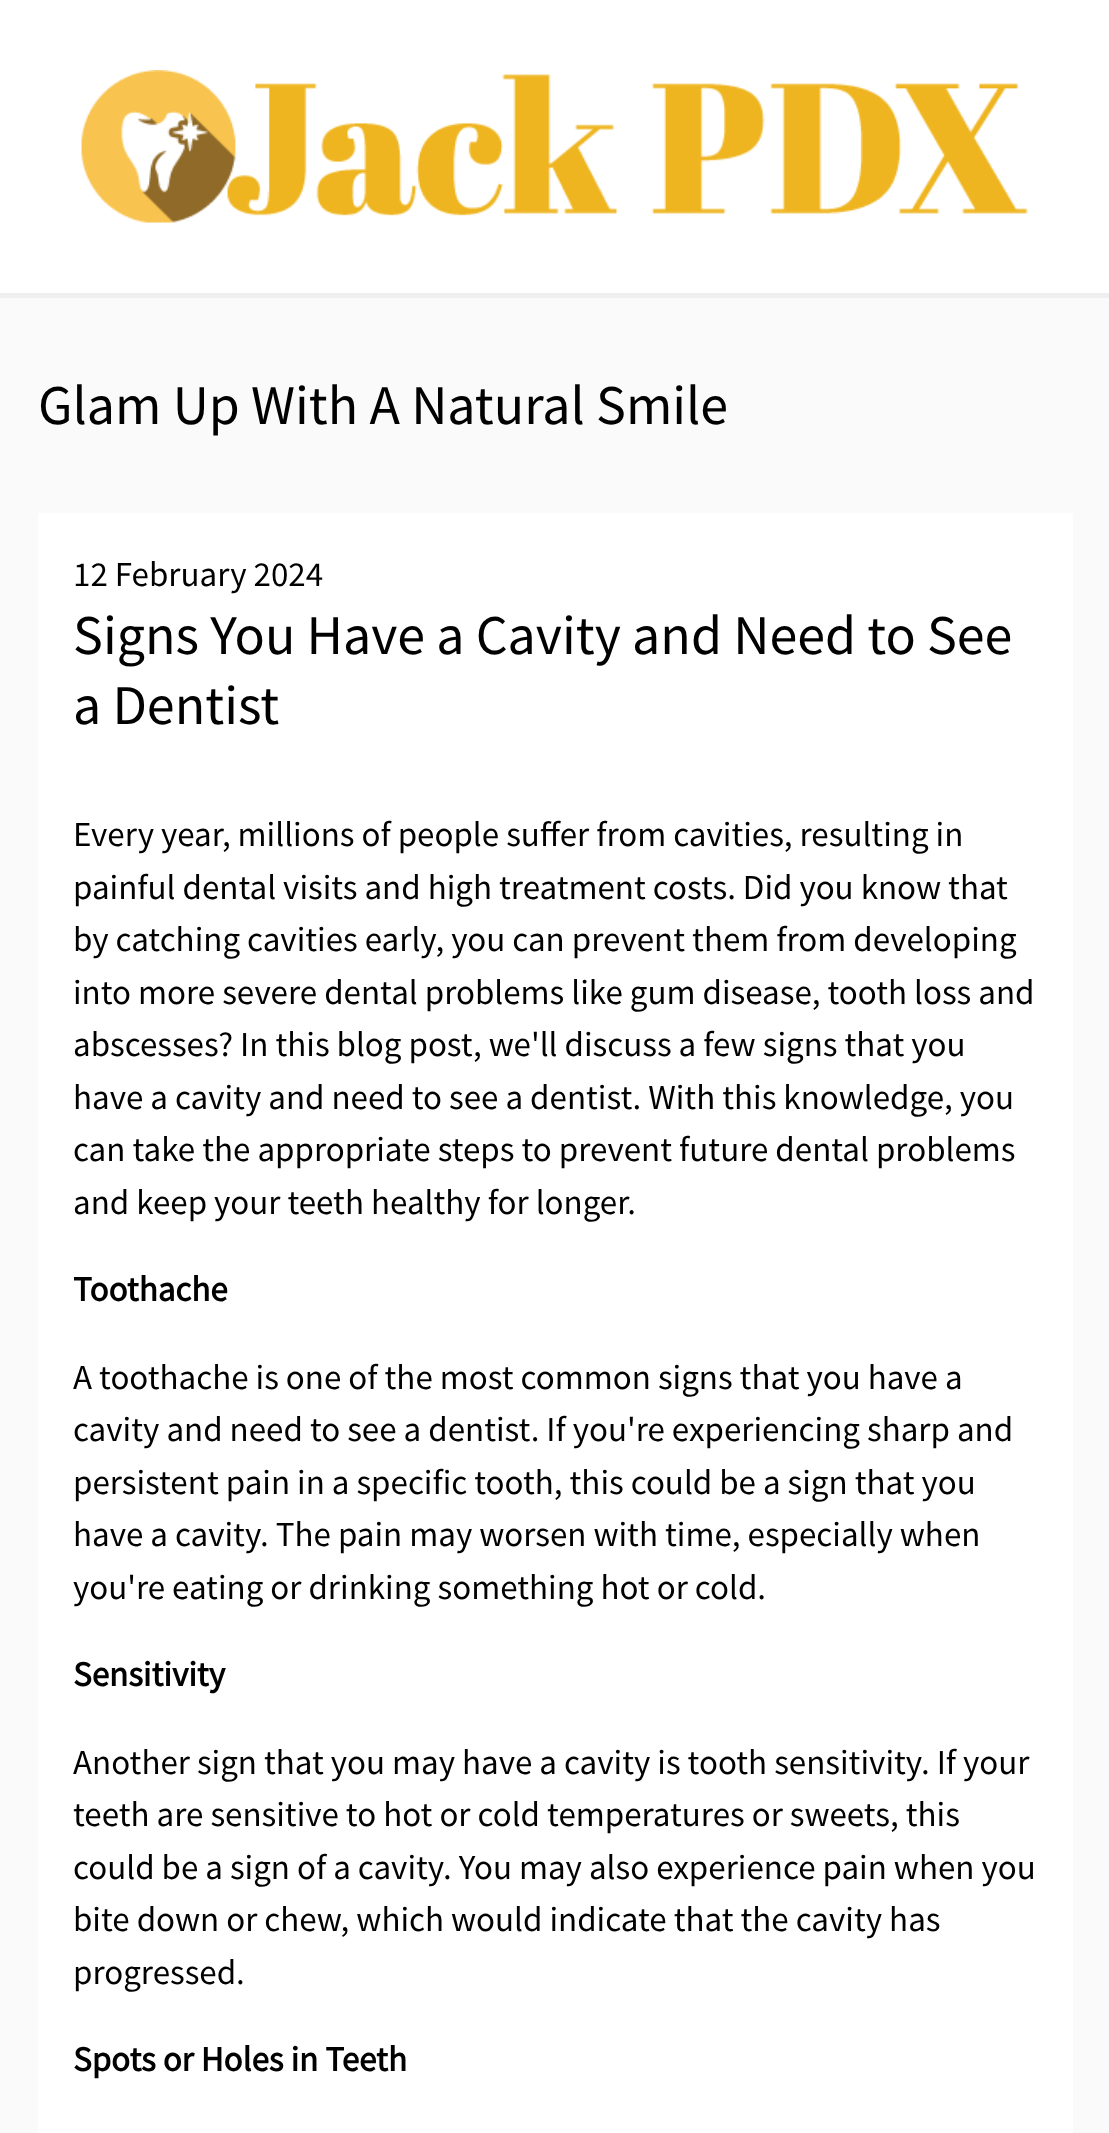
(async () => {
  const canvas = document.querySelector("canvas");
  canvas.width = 1109;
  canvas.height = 2133;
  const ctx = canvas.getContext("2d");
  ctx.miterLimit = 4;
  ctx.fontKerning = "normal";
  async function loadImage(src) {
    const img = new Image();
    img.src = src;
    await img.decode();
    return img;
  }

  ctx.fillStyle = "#fafafa";
  ctx.fillRect(0, 0, 1109, 2133);
  ctx.fillStyle = "#ffffff";
  ctx.fillRect(0, 0, 1109, 293);
  ctx.fillStyle = "#efefef";
  ctx.fillRect(0, 293, 1109, 5);
  ctx.drawImage(await loadImage("img/1.png"), 81, 70, 947, 153);
  ctx.fillStyle = "#ffffff";
  ctx.fillRect(38, 513, 1035, 1620);
  ctx.font = "56px Source Sans Pro";
  ctx.fillStyle = "#000000";
  ctx.fillText("Glam Up With A Natural Smile", 38, 424);
  ctx.font = "35px Source Sans Pro";
  ctx.fillText("12 February 2024", 73, 586);
  ctx.font = "56px Source Sans Pro";
  ctx.fillText("Signs You Have a Cavity and Need to See", 73, 654);
  ctx.fillText("a Dentist", 73, 724);
  ctx.font = "35px Source Sans Pro";
  for (const [text, x, y] of [
    ["Every year, millions of people suffer from cavities, resulting in", 73, 846],
    ["painful dental visits and high treatment costs. Did you know that", 73, 899],
    ["by catching cavities early, you can prevent them from developing", 73, 951],
    ["into more severe dental problems like gum disease, tooth loss and", 73, 1004],
    ["abscesses? In this blog post, we'll discuss a few signs that you", 73, 1056],
    ["have a cavity and need to see a dentist. With this knowledge, you", 73, 1109],
    ["can take the appropriate steps to prevent future dental problems", 73, 1161],
    ["and keep your teeth healthy for longer.", 73, 1214],
  ]) {
    ctx.fillText(text, x, y);
  }
  ctx.font = "bold 35px Source Sans Pro";
  ctx.fillText("Toothache", 73, 1301);
  ctx.font = "35px Source Sans Pro";
  for (const [text, x, y] of [
    ["A toothache is one of the most common signs that you have a", 73, 1389],
    ["cavity and need to see a dentist. If you're experiencing sharp and", 73, 1441],
    ["persistent pain in a specific tooth, this could be a sign that you", 73, 1494],
    ["have a cavity. The pain may worsen with time, especially when", 73, 1546],
    ["you're eating or drinking something hot or cold.", 73, 1599],
  ]) {
    ctx.fillText(text, x, y);
  }
  ctx.font = "bold 35px Source Sans Pro";
  ctx.fillText("Sensitivity", 73, 1686);
  ctx.font = "35px Source Sans Pro";
  for (const [text, x, y] of [
    ["Another sign that you may have a cavity is tooth sensitivity. If your", 73, 1774],
    ["teeth are sensitive to hot or cold temperatures or sweets, this", 73, 1826],
    ["could be a sign of a cavity. You may also experience pain when you", 73, 1879],
    ["bite down or chew, which would indicate that the cavity has", 73, 1931],
    ["progressed.", 73, 1984],
  ]) {
    ctx.fillText(text, x, y);
  }
  ctx.font = "bold 35px Source Sans Pro";
  ctx.fillText("Spots or Holes in Teeth", 73, 2071);
})();
